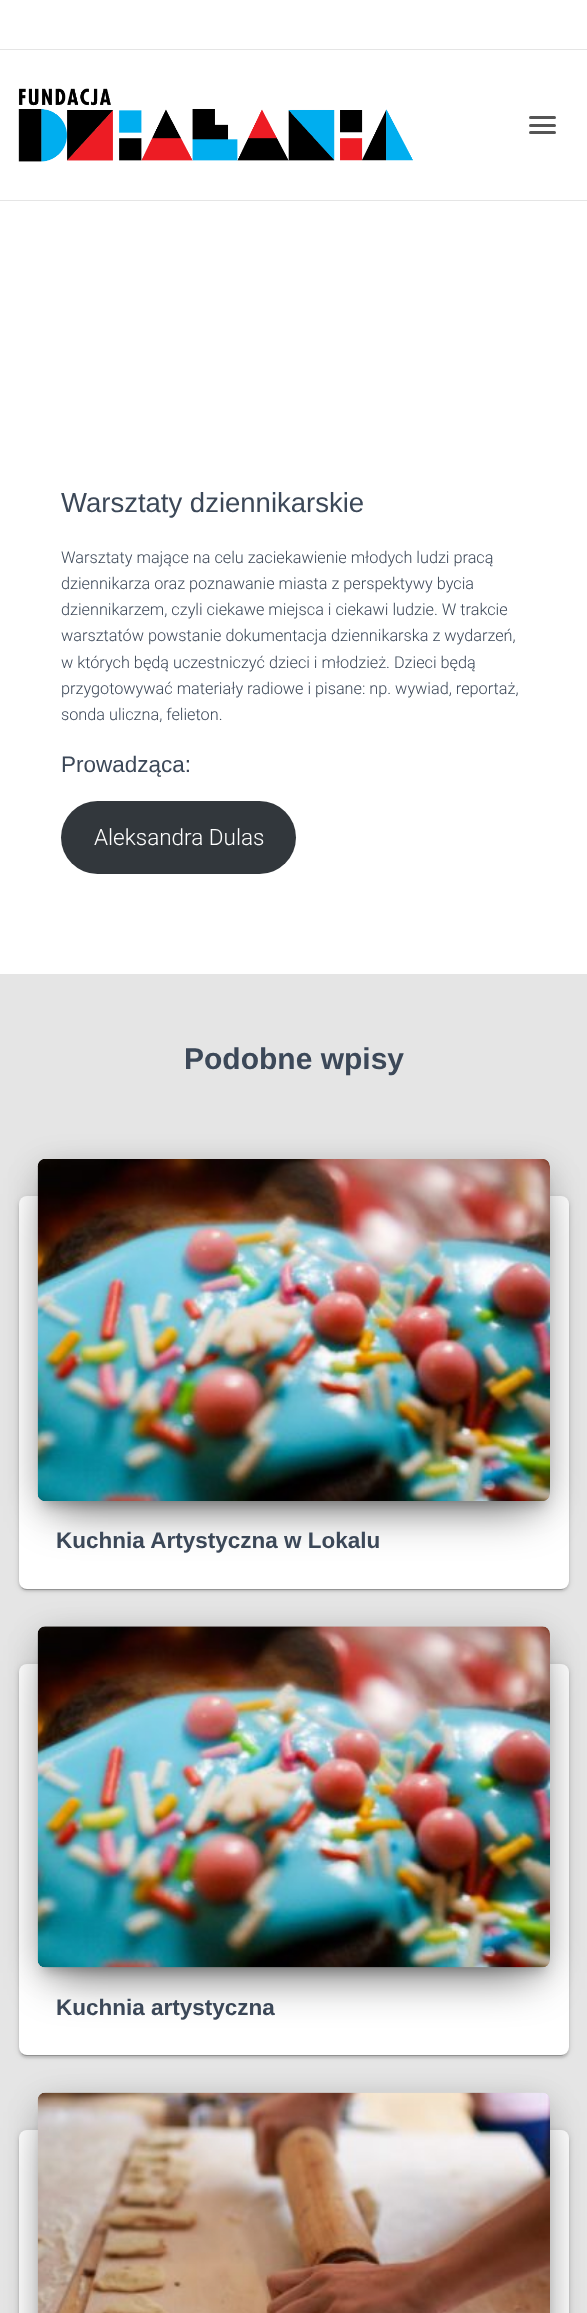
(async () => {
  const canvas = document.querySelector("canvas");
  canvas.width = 587;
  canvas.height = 2313;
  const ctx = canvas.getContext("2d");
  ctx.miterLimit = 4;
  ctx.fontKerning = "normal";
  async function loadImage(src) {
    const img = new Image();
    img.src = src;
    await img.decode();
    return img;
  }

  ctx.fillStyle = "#e5e5e5";
  ctx.fillRect(0, 0, 587, 2313);
  ctx.fillStyle = "#ffffff";
  ctx.fillRect(0, 0, 587, 49);
  ctx.fillRect(0, 50, 587, 150);
  ctx.drawImage(await loadImage("img/1.png"), 18, 88, 395, 74);
  ctx.fillStyle = "#555555";
  ctx.beginPath();
  ctx.roundRect(529, 116, 27, 3, 1.5);
  ctx.fill();
  ctx.beginPath();
  ctx.roundRect(529, 124, 27, 3, 1.5);
  ctx.fill();
  ctx.beginPath();
  ctx.roundRect(529, 131, 27, 3, 1.5);
  ctx.fill();
  ctx.fillStyle = "#ffffff";
  ctx.fillRect(0, 201, 587, 773);
  ctx.fillStyle = "#32373c";
  ctx.beginPath();
  ctx.roundRect(61, 801, 235, 73, 36.5);
  ctx.fill();
  ctx.fillStyle = "rgba(0, 0, 0, 0.12)";
  ctx.filter = "blur(3px)";
  ctx.beginPath();
  ctx.roundRect(19, 1198, 550, 392, 8);
  ctx.fill();
  ctx.filter = "none";
  ctx.fillStyle = "rgba(0, 0, 0, 0.2)";
  ctx.filter = "blur(0.5px)";
  ctx.beginPath();
  ctx.roundRect(21, 1203, 545, 387, 5);
  ctx.fill();
  ctx.filter = "none";
  ctx.fillStyle = "rgba(0, 0, 0, 0.14)";
  ctx.filter = "blur(1px)";
  ctx.beginPath();
  ctx.roundRect(19, 1199, 550, 392, 8);
  ctx.fill();
  ctx.filter = "none";
  ctx.fillStyle = "#ffffff";
  ctx.beginPath();
  ctx.roundRect(19, 1196, 550, 393, 8);
  ctx.fill();
  ctx.fillStyle = "rgba(0, 0, 0, 0.2)";
  ctx.filter = "blur(6px)";
  ctx.beginPath();
  ctx.roundRect(44, 1175, 500, 330, 1);
  ctx.fill();
  ctx.filter = "none";
  ctx.fillStyle = "rgba(0, 0, 0, 0.12)";
  ctx.filter = "blur(15.5px)";
  ctx.beginPath();
  ctx.roundRect(38, 1164, 512, 342, 8);
  ctx.fill();
  ctx.filter = "none";
  ctx.fillStyle = "rgba(0, 0, 0, 0.56)";
  ctx.filter = "blur(24px)";
  ctx.beginPath();
  ctx.rect(53, 1194, 482, 312);
  ctx.fill();
  ctx.filter = "none";
  ctx.drawImage(await loadImage("img/2.png"), 37, 1159, 513, 342);
  ctx.fillStyle = "rgba(0, 0, 0, 0.12)";
  ctx.filter = "blur(3px)";
  ctx.beginPath();
  ctx.roundRect(19, 1665, 550, 391, 8);
  ctx.fill();
  ctx.filter = "none";
  ctx.fillStyle = "rgba(0, 0, 0, 0.2)";
  ctx.filter = "blur(0.5px)";
  ctx.beginPath();
  ctx.roundRect(21, 1670, 545, 386, 5);
  ctx.fill();
  ctx.filter = "none";
  ctx.fillStyle = "rgba(0, 0, 0, 0.14)";
  ctx.filter = "blur(1px)";
  ctx.beginPath();
  ctx.roundRect(19, 1666, 550, 392, 8);
  ctx.fill();
  ctx.filter = "none";
  ctx.fillStyle = "#ffffff";
  ctx.beginPath();
  ctx.roundRect(19, 1664, 550, 391, 8);
  ctx.fill();
  ctx.fillStyle = "rgba(0, 0, 0, 0.2)";
  ctx.filter = "blur(6px)";
  ctx.beginPath();
  ctx.roundRect(44, 1643, 500, 328, 1);
  ctx.fill();
  ctx.filter = "none";
  ctx.fillStyle = "rgba(0, 0, 0, 0.12)";
  ctx.filter = "blur(15.5px)";
  ctx.beginPath();
  ctx.roundRect(38, 1631, 512, 342, 8);
  ctx.fill();
  ctx.filter = "none";
  ctx.fillStyle = "rgba(0, 0, 0, 0.56)";
  ctx.filter = "blur(24px)";
  ctx.beginPath();
  ctx.rect(53, 1661, 482, 312);
  ctx.fill();
  ctx.filter = "none";
  ctx.drawImage(await loadImage("img/3.png"), 37, 1626, 513, 342);
  ctx.fillStyle = "rgba(0, 0, 0, 0.12)";
  ctx.filter = "blur(3px)";
  ctx.beginPath();
  ctx.roundRect(19, 2131, 550, 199, 8);
  ctx.fill();
  ctx.filter = "none";
  ctx.fillStyle = "rgba(0, 0, 0, 0.14)";
  ctx.filter = "blur(1px)";
  ctx.beginPath();
  ctx.roundRect(19, 2133, 550, 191, 8);
  ctx.fill();
  ctx.filter = "none";
  ctx.fillStyle = "#ffffff";
  ctx.beginPath();
  ctx.roundRect(19, 2130, 550, 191, 8);
  ctx.fill();
  ctx.fillStyle = "rgba(0, 0, 0, 0.2)";
  ctx.filter = "blur(6px)";
  ctx.beginPath();
  ctx.roundRect(44, 2109, 500, 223, 1);
  ctx.fill();
  ctx.filter = "none";
  ctx.fillStyle = "rgba(0, 0, 0, 0.12)";
  ctx.filter = "blur(15.5px)";
  ctx.beginPath();
  ctx.roundRect(38, 2098, 512, 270, 8);
  ctx.fill();
  ctx.filter = "none";
  ctx.fillStyle = "rgba(0, 0, 0, 0.56)";
  ctx.filter = "blur(24px)";
  ctx.beginPath();
  ctx.rect(53, 2128, 482, 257);
  ctx.fill();
  ctx.filter = "none";
  ctx.drawImage(await loadImage("img/4.png"), 37, 2092, 513, 221);
  ctx.font = "27.5px Liberation Sans";
  ctx.fillStyle = "#3c4858";
  ctx.fillText("Warsztaty dziennikarskie", 61, 512);
  ctx.font = "300 16.25px Roboto";
  for (const [text, x, y] of [
    ["Warsztaty mające na celu zaciekawienie młodych ludzi pracą", 61, 563],
    ["dziennikarza oraz poznawanie miasta z perspektywy bycia", 61, 589],
    ["dziennikarzem, czyli ciekawe miejsca i ciekawi ludzie. W trakcie", 61, 615],
    ["warsztatów powstanie dokumentacja dziennikarska z wydarzeń,", 61, 641],
    ["w których będą uczestniczyć dzieci i młodzież. Dzieci będą", 61, 668],
    ["przygotowywać materiały radiowe i pisane: np. wywiad, reportaż,", 61, 694],
    ["sonda uliczna, felieton.", 61, 720],
  ]) {
    ctx.fillText(text, x, y);
  }
  ctx.font = "22.5px Liberation Sans";
  ctx.fillText("Prowadząca:", 61, 772);
  ctx.font = "300 22.5px Roboto";
  ctx.fillStyle = "#ffffff";
  ctx.fillText("Aleksandra Dulas", 94, 845);
  ctx.font = "bold 30px Liberation Sans";
  ctx.fillStyle = "#3c4858";
  ctx.fillText("Podobne wpisy", 184, 1069);
  ctx.font = "bold 22.5px Liberation Sans";
  ctx.fillText("Kuchnia Artystyczna w Lokalu", 56, 1548);
  ctx.fillText("Kuchnia artystyczna", 56, 2015);
})();
